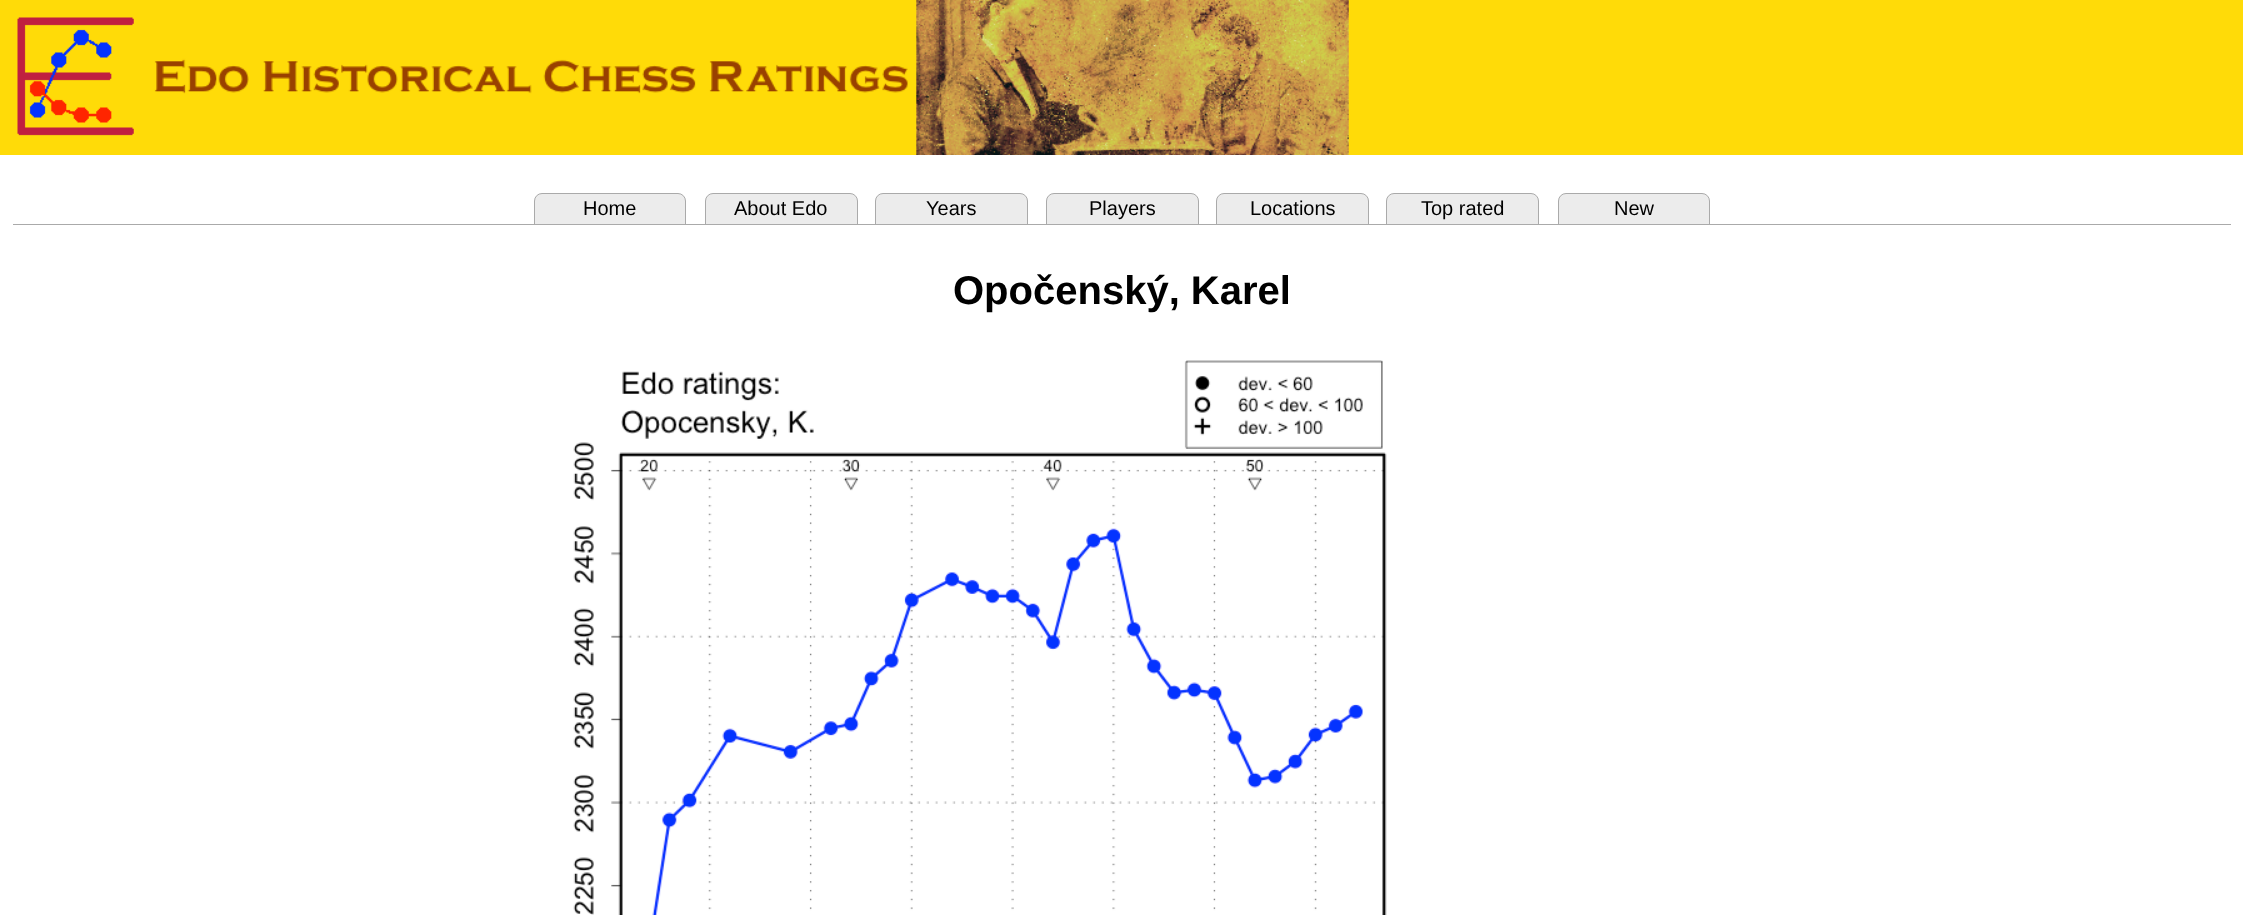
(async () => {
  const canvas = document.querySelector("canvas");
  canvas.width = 2243;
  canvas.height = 915;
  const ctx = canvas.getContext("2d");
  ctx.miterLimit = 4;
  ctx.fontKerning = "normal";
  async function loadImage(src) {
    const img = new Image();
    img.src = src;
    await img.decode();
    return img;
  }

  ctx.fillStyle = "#ffffff";
  ctx.fillRect(0, 0, 2243, 915);
  ctx.drawImage(await loadImage("img/1.png"), 0, 0, 2243, 155);
  ctx.fillStyle = "#ececec";
  ctx.beginPath();
  ctx.roundRect(534.5, 193.5, 151, 31, [7.5, 7.5, 0, 0]);
  ctx.fill();
  ctx.strokeStyle = "#aaaaaa";
  ctx.stroke();
  ctx.beginPath();
  ctx.roundRect(705.5, 193.5, 152, 31, [7.5, 7.5, 0, 0]);
  ctx.fill();
  ctx.stroke();
  ctx.beginPath();
  ctx.roundRect(875.5, 193.5, 152, 31, [7.5, 7.5, 0, 0]);
  ctx.fill();
  ctx.stroke();
  ctx.beginPath();
  ctx.roundRect(1046.5, 193.5, 152, 31, [7.5, 7.5, 0, 0]);
  ctx.fill();
  ctx.stroke();
  ctx.beginPath();
  ctx.roundRect(1216.5, 193.5, 152, 31, [7.5, 7.5, 0, 0]);
  ctx.fill();
  ctx.stroke();
  ctx.beginPath();
  ctx.roundRect(1386.5, 193.5, 152, 31, [7.5, 7.5, 0, 0]);
  ctx.fill();
  ctx.stroke();
  ctx.beginPath();
  ctx.roundRect(1558.5, 193.5, 151, 31, [7.5, 7.5, 0, 0]);
  ctx.fill();
  ctx.stroke();
  ctx.fillStyle = "#aaaaaa";
  ctx.fillRect(13, 224, 2218, 1);
  ctx.drawImage(await loadImage("img/2.png"), 573, 360, 814, 555);
  ctx.font = "20px Liberation Sans";
  ctx.fillStyle = "#000000";
  for (const [text, x, y] of [
    ["Home", 583, 215],
    ["About Edo", 734, 215],
    ["Years", 926, 215],
    ["Players", 1089, 215],
    ["Locations", 1250, 215],
    ["Top rated", 1421, 215],
    ["New", 1614, 215],
  ]) {
    ctx.fillText(text, x, y);
  }
  ctx.font = "bold 40px Liberation Sans";
  ctx.fillText("Opočenský, Karel", 953, 304);
})();
